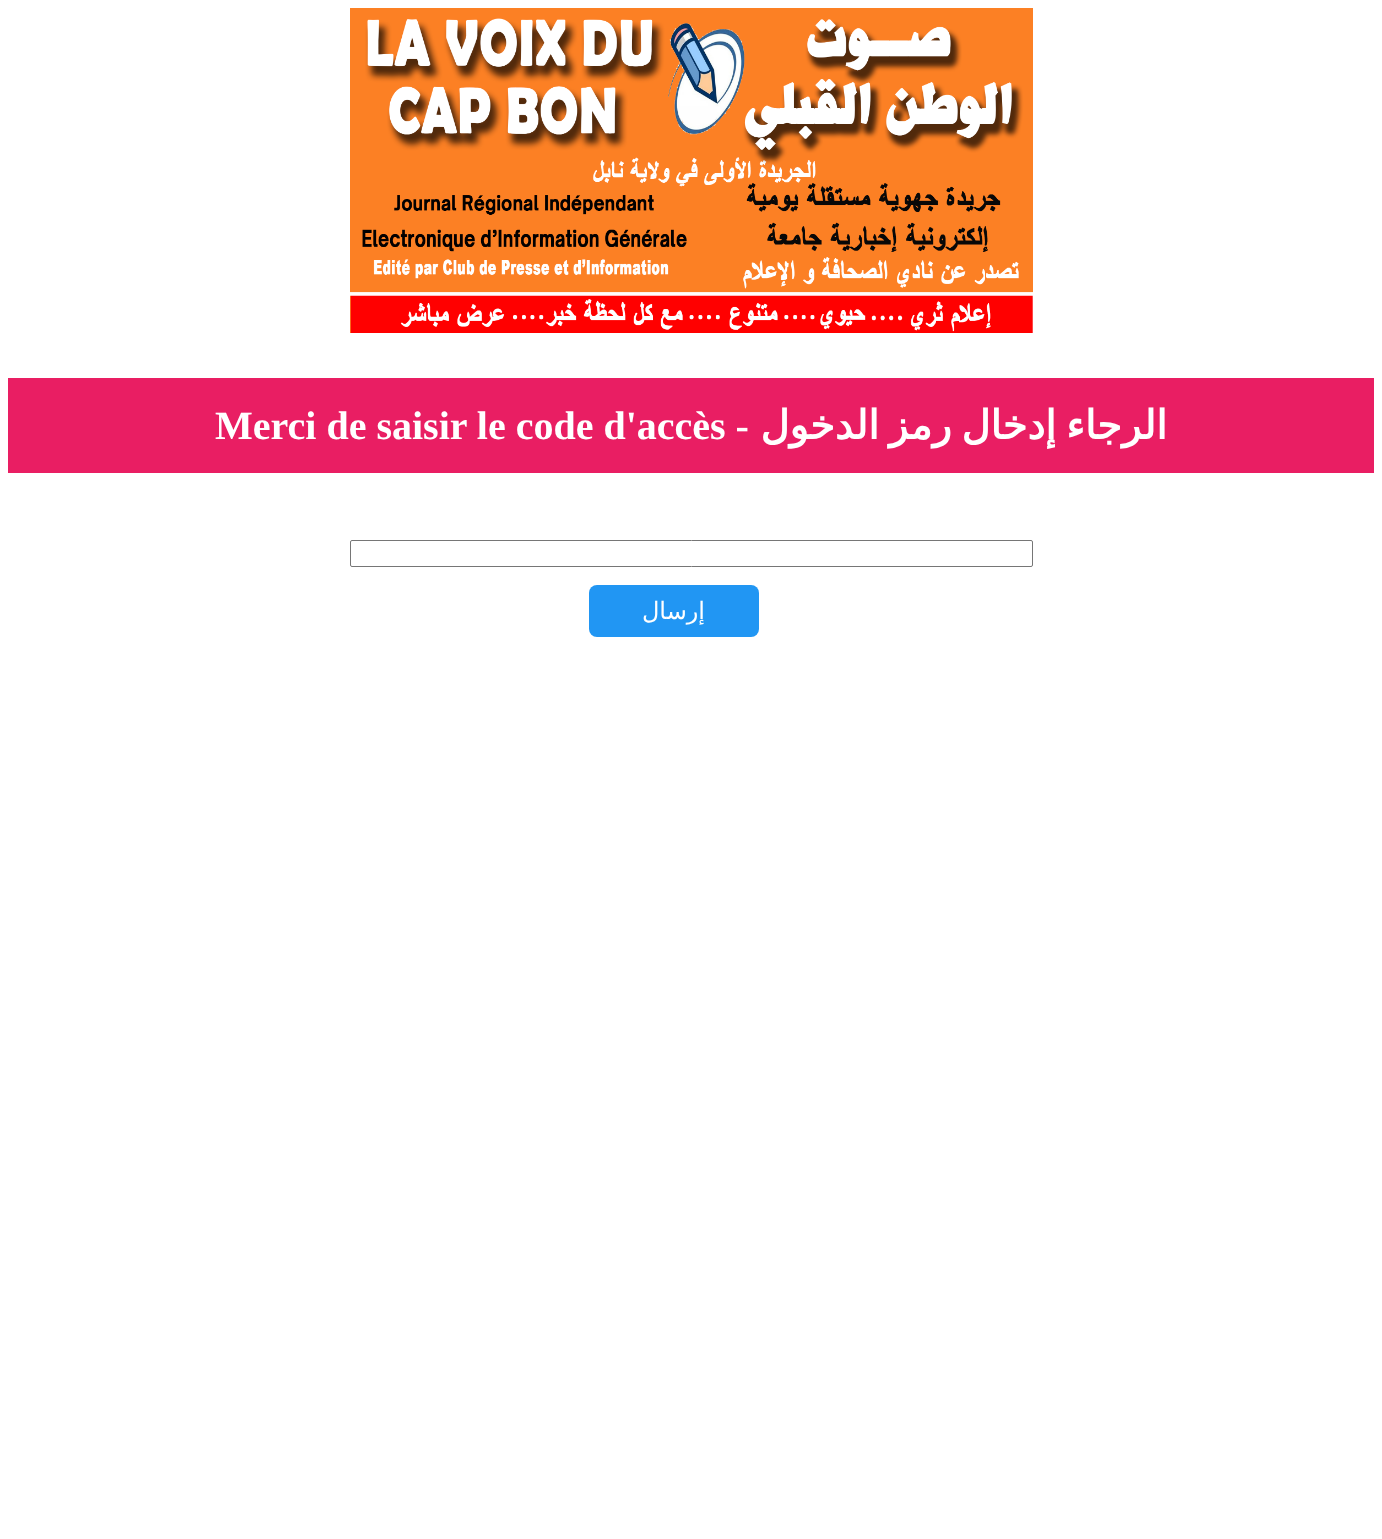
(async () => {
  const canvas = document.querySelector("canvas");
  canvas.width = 1382;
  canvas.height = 1539;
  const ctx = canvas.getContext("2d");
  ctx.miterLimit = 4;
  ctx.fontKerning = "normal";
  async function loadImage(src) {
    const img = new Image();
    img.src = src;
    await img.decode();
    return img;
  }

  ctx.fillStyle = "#ffffff";
  ctx.fillRect(0, 0, 1382, 1539);
  ctx.drawImage(await loadImage("img/1.png"), 350, 8, 683, 325);
  ctx.fillStyle = "#e91e63";
  ctx.fillRect(8, 378, 1366, 95);
  ctx.beginPath();
  ctx.roundRect(350.5, 540.5, 682, 26, 1.5);
  ctx.strokeStyle = "#767676";
  ctx.stroke();
  ctx.fillStyle = "#2196f3";
  ctx.beginPath();
  ctx.roundRect(589, 585, 170, 52, 8);
  ctx.fill();
  ctx.font = "bold 40px Liberation Serif";
  ctx.fillStyle = "#ffffff";
  ctx.fillText("Merci de saisir le code d'accès -", 215, 439);
  ctx.wordSpacing = "-3px";
  ctx.direction = "rtl";
  ctx.font = "bold 40px DejaVu Sans";
  ctx.fillText("الرجاء إدخال رمز الدخول", 1167, 439);
  ctx.wordSpacing = "0px";
  ctx.font = "24px DejaVu Sans";
  ctx.fillText("إرسال", 705, 619);
})();
